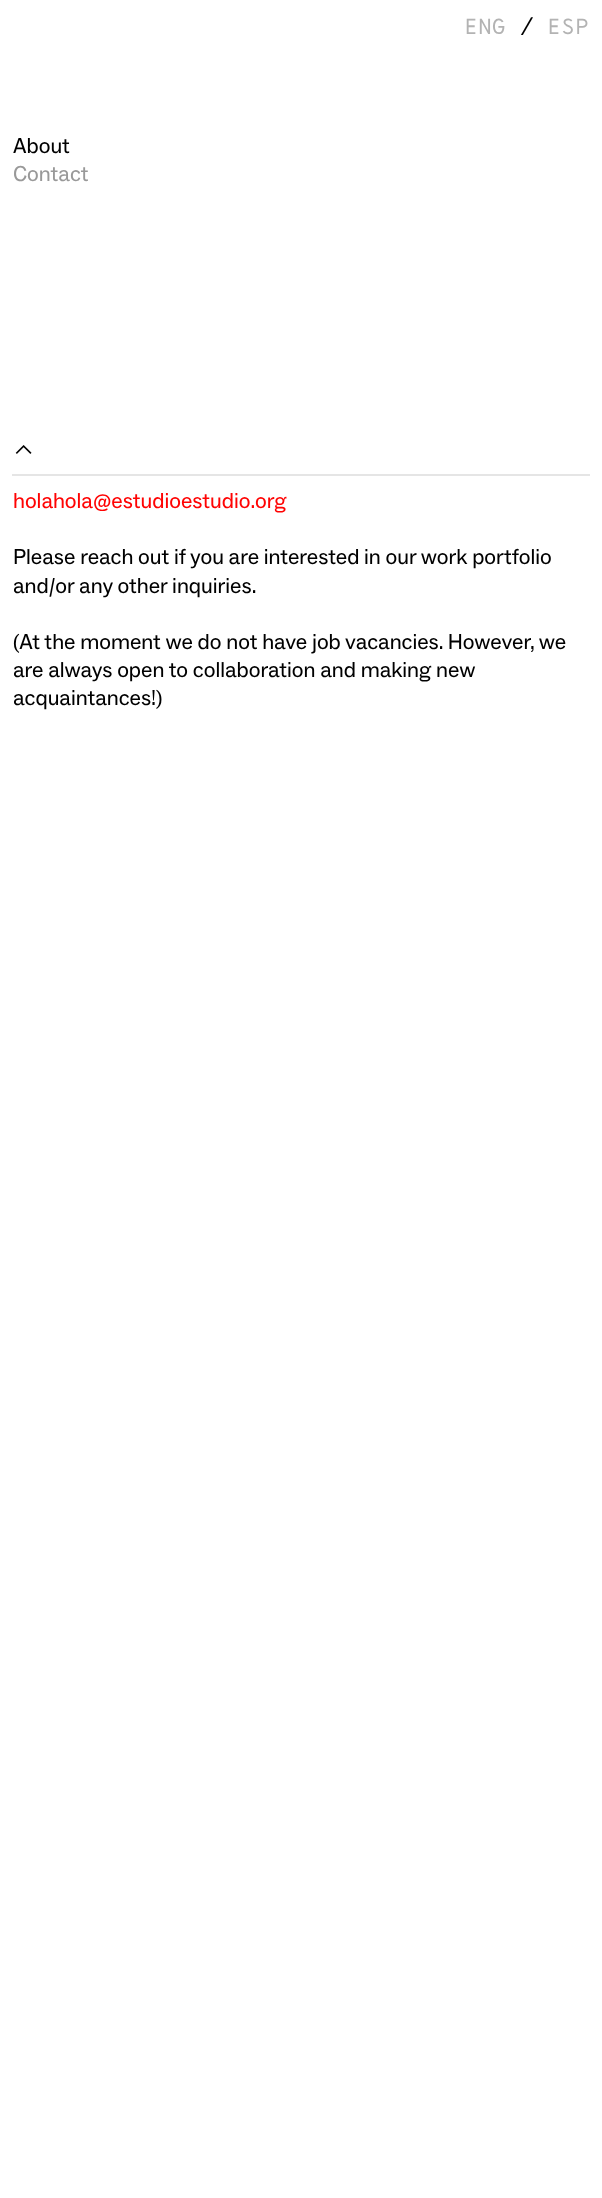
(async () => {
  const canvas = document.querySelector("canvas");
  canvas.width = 602;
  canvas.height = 2198;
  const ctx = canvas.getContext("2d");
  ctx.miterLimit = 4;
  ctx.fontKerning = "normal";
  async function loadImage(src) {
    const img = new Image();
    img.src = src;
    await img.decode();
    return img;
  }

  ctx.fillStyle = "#ffffff";
  ctx.fillRect(0, 0, 602, 2198);
  ctx.drawImage(await loadImage("img/1.png"), 15, 445, 17, 9);
  ctx.fillStyle = "#e5e5e5";
  ctx.fillRect(12, 474, 578, 2);
  ctx.font = "21.7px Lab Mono";
  ctx.fillStyle = "#b3b3b3";
  ctx.fillText("ENG", 464, 34);
  ctx.fillStyle = "#000000";
  ctx.fillText("/", 520, 34);
  ctx.fillStyle = "#b3b3b3";
  ctx.fillText("ESP", 547, 34);
  ctx.font = "21.7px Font";
  ctx.fillStyle = "#000000";
  ctx.fillText("About", 13, 153);
  ctx.fillStyle = "#999999";
  ctx.fillText("Contact", 13, 181);
  ctx.fillStyle = "#ff0303";
  ctx.fillText("holahola@estudioestudio.org", 13, 508);
  ctx.fillStyle = "#000000";
  for (const [text, x, y] of [
    ["Please reach out if you are interested in our work portfolio", 13, 564],
    ["and/or any other inquiries.", 13, 593],
    ["(At the moment we do not have job vacancies. However, we", 13, 649],
    ["are always open to collaboration and making new", 13, 677],
    ["acquaintances!)", 13, 705],
  ]) {
    ctx.fillText(text, x, y);
  }
})();
